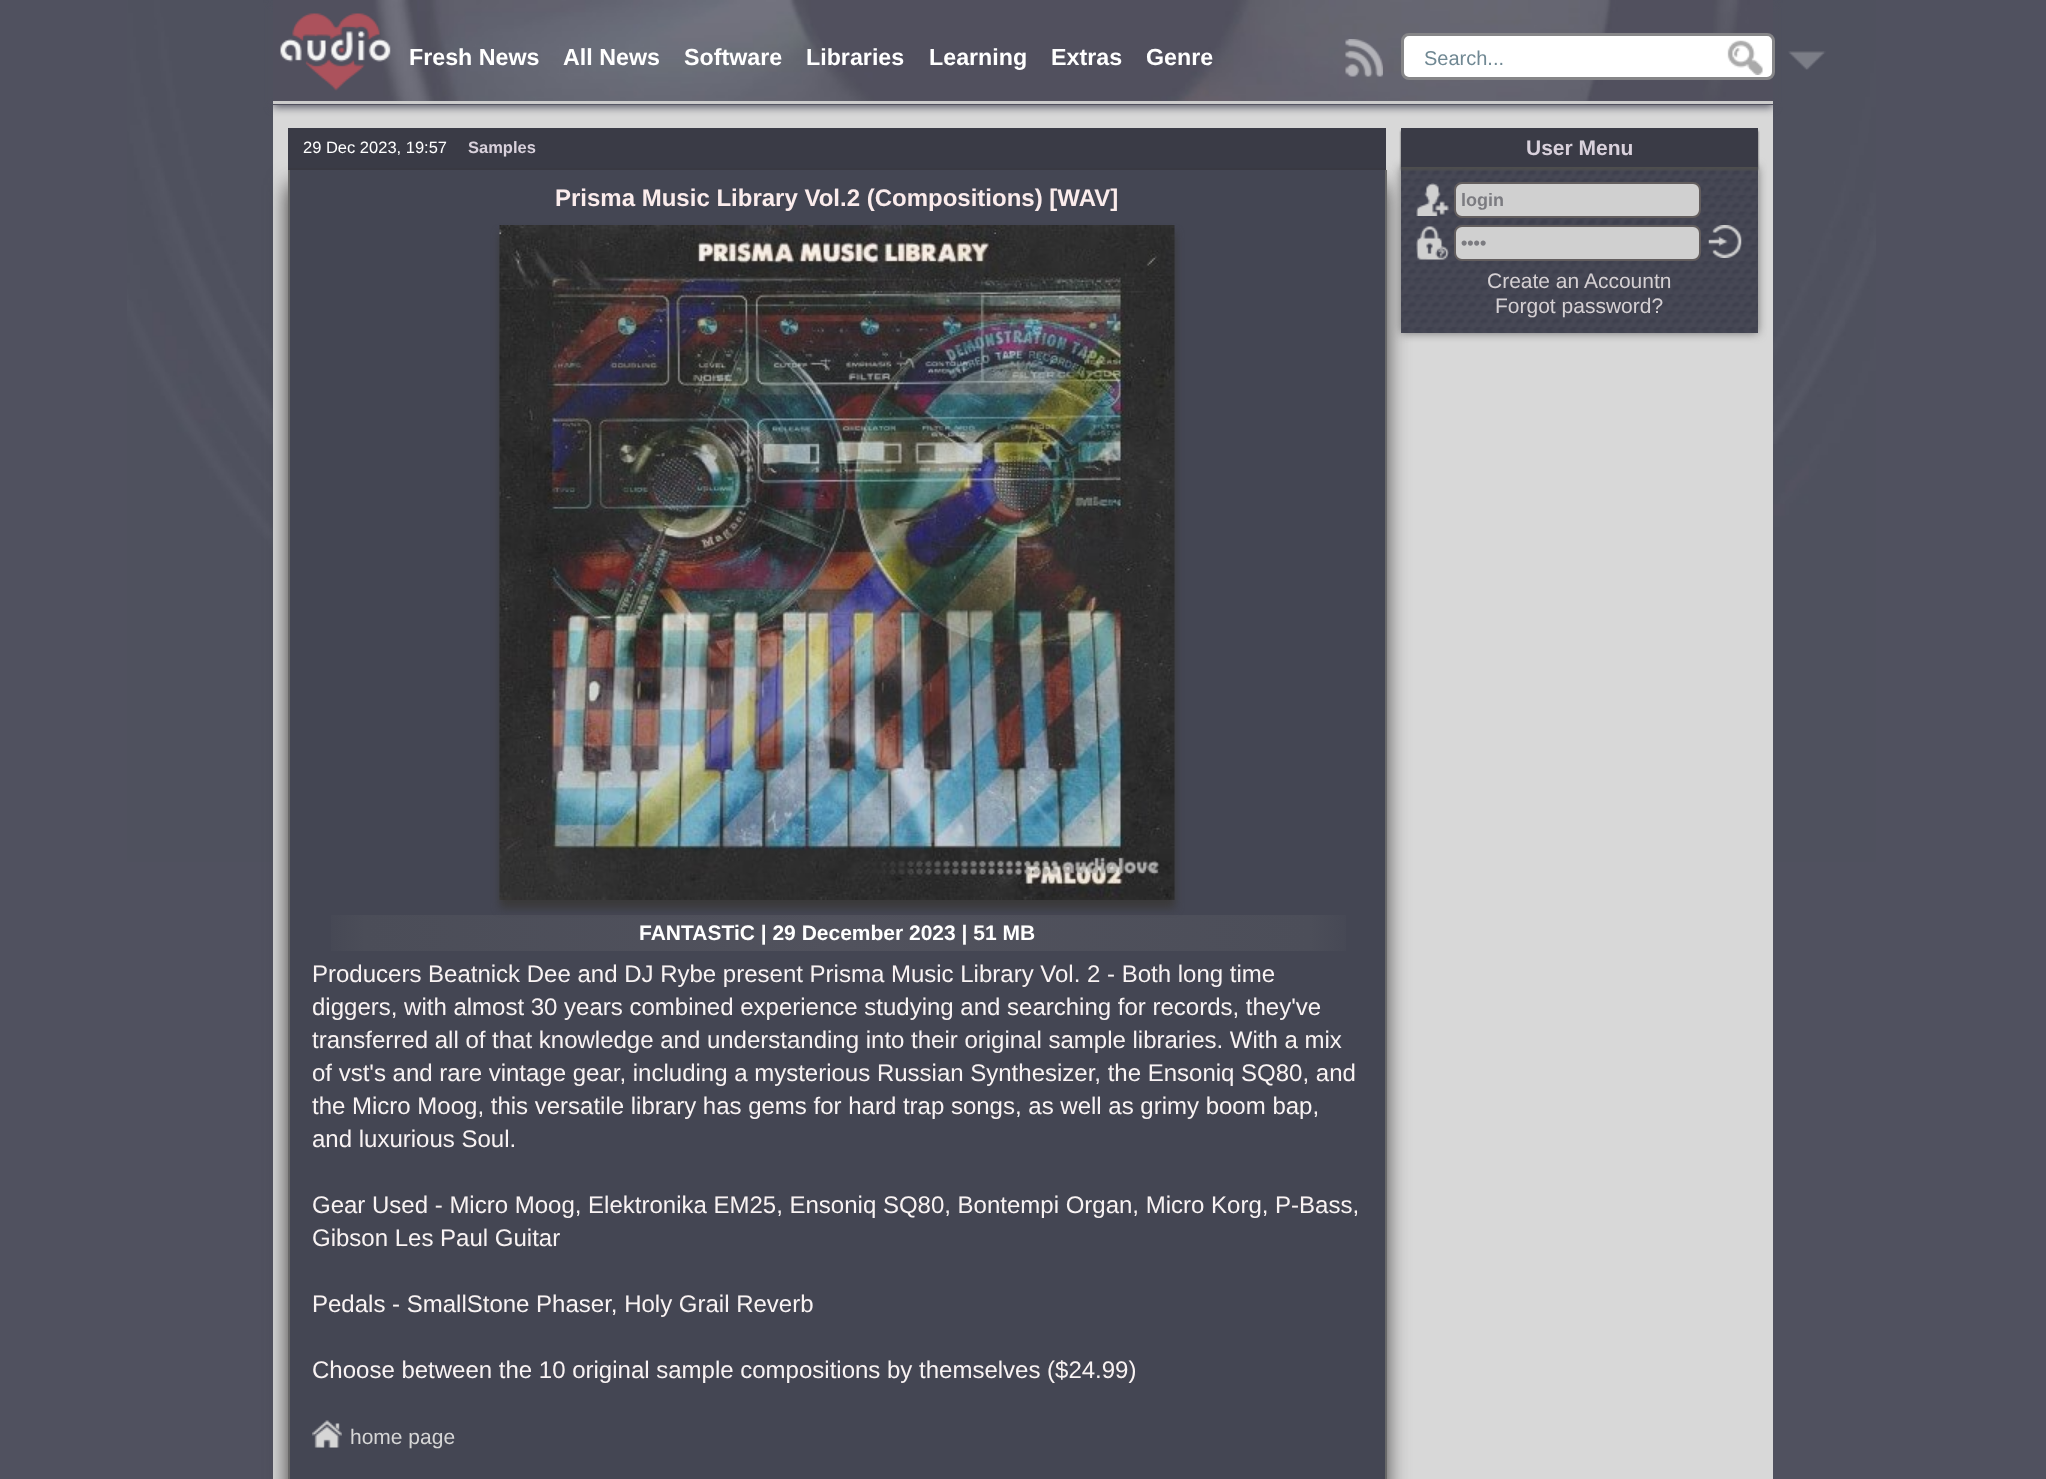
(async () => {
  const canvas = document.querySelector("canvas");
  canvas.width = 2046;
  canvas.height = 1479;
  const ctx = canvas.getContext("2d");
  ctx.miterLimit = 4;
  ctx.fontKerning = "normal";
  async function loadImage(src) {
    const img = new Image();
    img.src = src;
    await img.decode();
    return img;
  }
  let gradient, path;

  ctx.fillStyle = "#50515f";
  ctx.fillRect(0, 0, 2046, 1479);
  ctx.drawImage(await loadImage("img/1.png"), 127, 0, 1749, 862);
  ctx.fillStyle = "#d8d8d8";
  ctx.fillRect(273, 105, 1500, 1374);
  ctx.drawImage(await loadImage("img/2.png"), 273, 0, 1500, 105);
  ctx.save();
  path = new Path2D("M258 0H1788V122H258ZM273 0H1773V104H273Z");
  ctx.clip(path, "evenodd");
  ctx.fillStyle = "#50515f";
  ctx.filter = "blur(4.5px)";
  ctx.beginPath();
  ctx.rect(273, 3, 1500, 104);
  ctx.fill();
  ctx.filter = "none";
  ctx.restore();
  ctx.drawImage(await loadImage("img/3.png"), 280, 13, 111, 78);
  ctx.fillStyle = "#cccccc";
  ctx.fillRect(273, 101, 1500, 3);
  ctx.drawImage(await loadImage("img/4.png"), 1345, 39, 38, 38);
  ctx.fillStyle = "#ffffff";
  ctx.beginPath();
  ctx.roundRect(1402.5, 34.5, 371, 44, 6.5);
  ctx.fill();
  ctx.strokeStyle = "#868688";
  ctx.lineWidth = 3;
  ctx.stroke();
  ctx.drawImage(await loadImage("img/5.png"), 1727, 40, 36, 35);
  ctx.drawImage(await loadImage("img/6.png"), 1788, 51, 38, 19);
  ctx.fillStyle = "#3a3939";
  ctx.filter = "blur(11px)";
  ctx.beginPath();
  ctx.rect(288, 185, 1098, 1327);
  ctx.fill();
  ctx.filter = "none";
  for (const [x, y, w, h, color] of [
    [288, 128, 1098, 40, "#3a3b46"],
    [288, 168, 1098, 2, "#393942"],
    [290, 170, 1095, 1309, "#444653"],
    [1385, 170, 2, 1309, "#696969"],
    [288, 170, 2, 1309, "#676767"],
  ]) {
    ctx.fillStyle = color;
    ctx.fillRect(x, y, w, h);
  }
  gradient = ctx.createLinearGradient(312, 933, 1362, 933);
  gradient.addColorStop(0, "#444653");
  gradient.addColorStop(0.05, "#4b4d58");
  gradient.addColorStop(0.5, "#51525d");
  gradient.addColorStop(0.95, "#4c4e59");
  gradient.addColorStop(1, "#444653");
  ctx.fillStyle = gradient;
  ctx.fillRect(331, 915, 1015, 36);
  ctx.fillStyle = "#3a3939";
  ctx.filter = "blur(4px)";
  ctx.beginPath();
  ctx.rect(500, 233, 675, 675);
  ctx.fill();
  ctx.filter = "none";
  ctx.drawImage(await loadImage("img/7.png"), 499, 225, 676, 675);
  ctx.drawImage(await loadImage("img/8.png"), 312, 1420, 30, 28);
  ctx.fillStyle = "#717171";
  ctx.filter = "blur(5px)";
  ctx.beginPath();
  ctx.rect(1401, 167, 357, 166);
  ctx.fill();
  ctx.filter = "none";
  ctx.fillStyle = "#4a4757";
  ctx.fillRect(1401, 167, 357, 166);
  ctx.drawImage(await loadImage("img/9.png"), 1401, 167, 357, 166);
  ctx.fillStyle = "#4e4e4e";
  ctx.filter = "blur(1px)";
  ctx.beginPath();
  ctx.rect(1401, 131, 357, 39);
  ctx.fill();
  ctx.filter = "none";
  ctx.fillStyle = "#3a3b46";
  ctx.fillRect(1401, 128, 357, 39);
  ctx.drawImage(await loadImage("img/10.png"), 1416, 183, 33, 33);
  ctx.fillStyle = "#d0d0d0";
  ctx.beginPath();
  ctx.roundRect(1455, 183, 245, 34, 7);
  ctx.fill();
  ctx.strokeStyle = "#635e5e";
  ctx.lineWidth = 2;
  ctx.stroke();
  ctx.drawImage(await loadImage("img/11.png"), 1416, 226, 33, 34);
  ctx.beginPath();
  ctx.roundRect(1455, 226, 245, 34, 7);
  ctx.fill();
  ctx.stroke();
  ctx.drawImage(await loadImage("img/12.png"), 1708, 225, 34, 33);
  ctx.font = "bold 23.25px Liberation Sans";
  ctx.fillStyle = "#ffffff";
  for (const [text, x, y] of [
    ["Fresh News", 409, 65],
    ["All News", 563, 65],
    ["Software", 684, 65],
    ["Libraries", 806, 65],
    ["Learning", 929, 65],
    ["Extras", 1051, 65],
    ["Genre", 1146, 65],
  ]) {
    ctx.fillText(text, x, y);
  }
  ctx.font = "20px Liberation Sans";
  ctx.fillStyle = "#708893";
  ctx.fillText("Search...", 1424, 65);
  ctx.font = "16.5px Liberation Sans";
  ctx.fillStyle = "#ffffff";
  ctx.fillText("29 Dec 2023, 19:57", 303, 153);
  ctx.font = "bold 16.5px Liberation Sans";
  ctx.fillStyle = "#d9d1dc";
  ctx.fillText("Samples", 468, 153);
  ctx.font = "bold 24px Liberation Sans";
  ctx.fillStyle = "#fbecec";
  ctx.fillText("Prisma Music Library Vol.2 (Compositions) [WAV]", 555, 206);
  ctx.font = "bold 21px Liberation Sans";
  ctx.fillStyle = "#ffffff";
  ctx.fillText("FANTASTiC | 29 December 2023 | 51 MB", 639, 940);
  ctx.font = "24px Liberation Sans";
  ctx.fillStyle = "#f9f3f3";
  for (const [text, x, y] of [
    ["Producers Beatnick Dee and DJ Rybe present Prisma Music Library Vol. 2 - Both long time", 312, 982],
    ["diggers, with almost 30 years combined experience studying and searching for records, they've", 312, 1015],
    ["transferred all of that knowledge and understanding into their original sample libraries. With a mix", 312, 1048],
    ["of vst's and rare vintage gear, including a mysterious Russian Synthesizer, the Ensoniq SQ80, and", 312, 1081],
    ["the Micro Moog, this versatile library has gems for hard trap songs, as well as grimy boom bap,", 312, 1114],
    ["and luxurious Soul.", 312, 1147],
    ["Gear Used - Micro Moog, Elektronika EM25, Ensoniq SQ80, Bontempi Organ, Micro Korg, P-Bass,", 312, 1213],
    ["Gibson Les Paul Guitar", 312, 1246],
    ["Pedals - SmallStone Phaser, Holy Grail Reverb", 312, 1312],
    ["Choose between the 10 original sample compositions by themselves ($24.99)", 312, 1378],
  ]) {
    ctx.fillText(text, x, y);
  }
  ctx.font = "21px Liberation Sans";
  ctx.fillStyle = "#d6d6d6";
  ctx.fillText("home page", 350, 1444);
  ctx.font = "bold 21px Liberation Sans";
  ctx.fillStyle = "#d9d1dc";
  ctx.fillText("User Menu", 1526, 155);
  ctx.font = "bold 18px Liberation Sans";
  ctx.fillStyle = "#7b7b80";
  ctx.fillText("login", 1461, 206);
  ctx.fillText("••••", 1461, 249);
  ctx.font = "21px Liberation Sans";
  ctx.fillStyle = "#d5d0d3";
  ctx.fillText("Create an Accountn", 1487, 288);
  ctx.fillText("Forgot password?", 1495, 313);
})();
